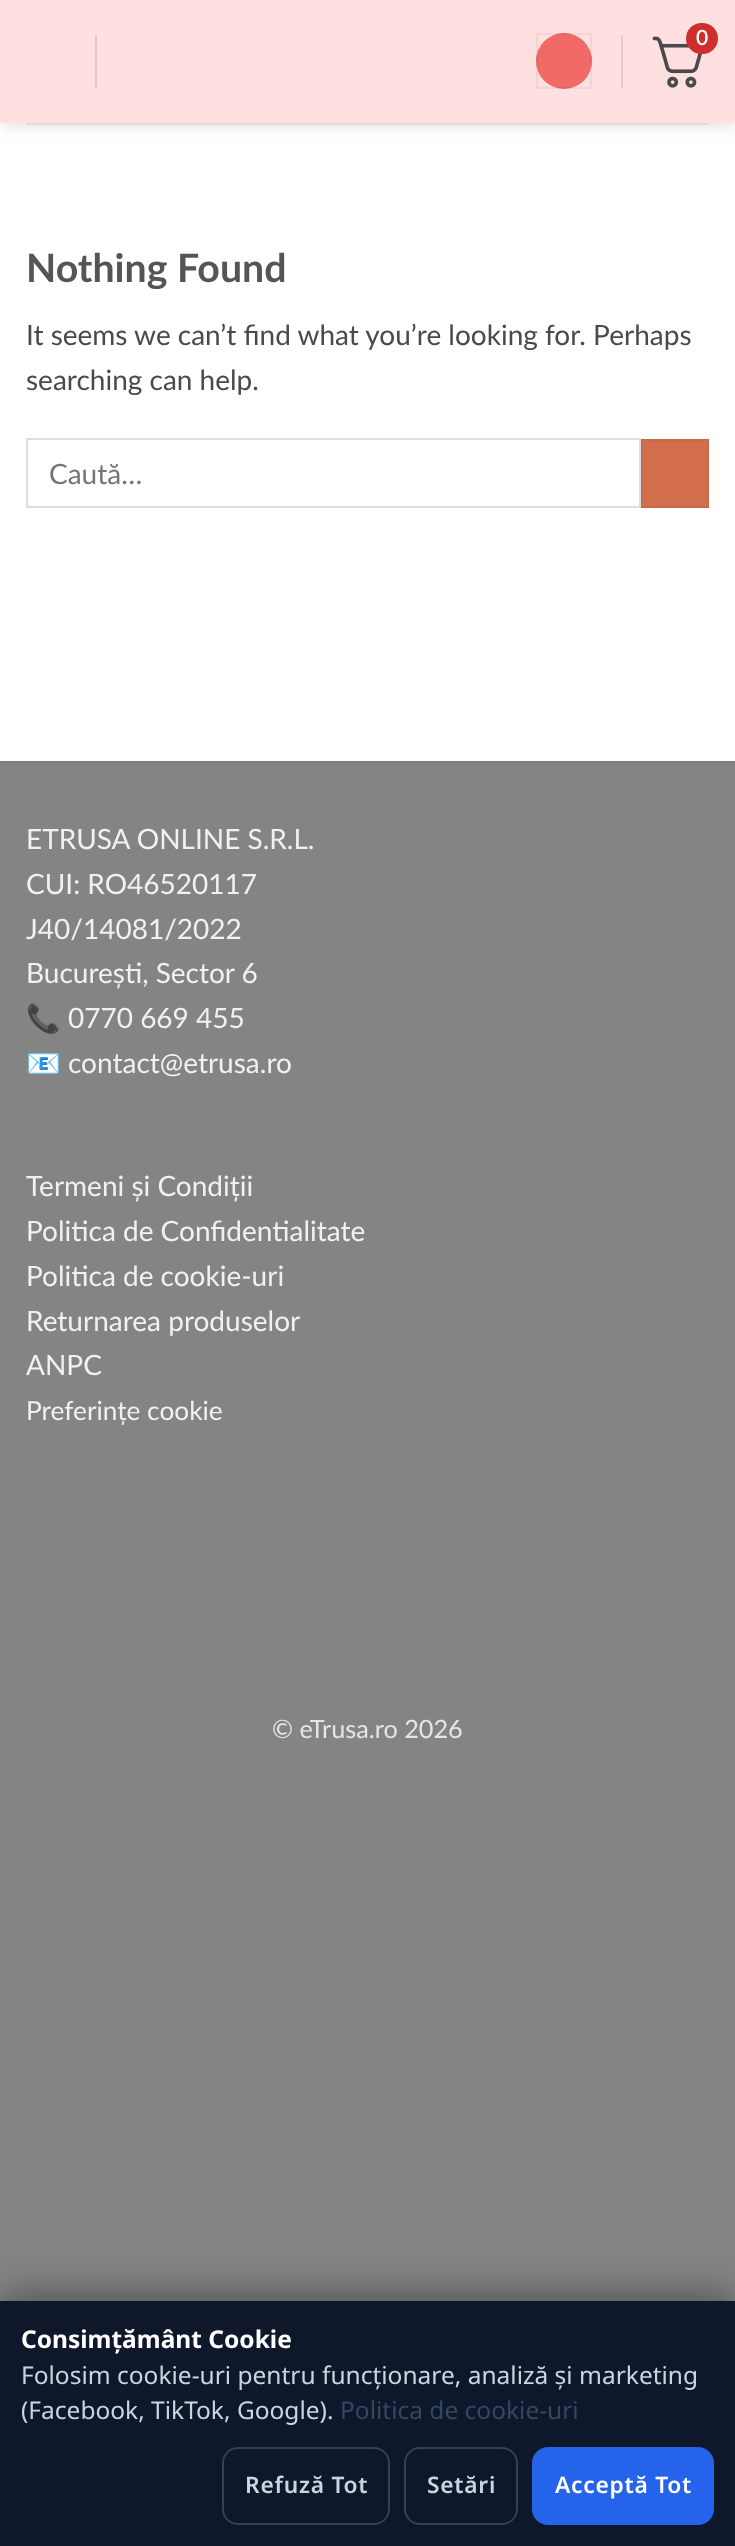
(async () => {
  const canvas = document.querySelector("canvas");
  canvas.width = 735;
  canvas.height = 2546;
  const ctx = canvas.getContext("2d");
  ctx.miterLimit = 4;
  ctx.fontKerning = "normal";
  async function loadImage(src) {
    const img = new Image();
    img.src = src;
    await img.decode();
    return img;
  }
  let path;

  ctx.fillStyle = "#848484";
  ctx.fillRect(0, 0, 735, 2546);
  ctx.fillStyle = "#ffffff";
  ctx.fillRect(0, 0, 735, 761);
  ctx.save();
  path = new Path2D("M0 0H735V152H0ZM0 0H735V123H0Z");
  ctx.clip(path, "evenodd");
  ctx.fillStyle = "rgba(0, 0, 0, 0.15)";
  ctx.filter = "blur(9px)";
  ctx.beginPath();
  ctx.rect(2, 2, 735, 122);
  ctx.fill();
  ctx.filter = "none";
  ctx.restore();
  ctx.fillStyle = "rgba(255, 221, 221, 0.9)";
  ctx.fillRect(0, 0, 735, 123);
  ctx.fillStyle = "#e6caca";
  ctx.fillRect(95, 35, 2, 53);
  ctx.fillStyle = "#f16a67";
  ctx.beginPath();
  ctx.arc(564, 61, 28, 0, Math.PI * 2);
  ctx.fill();
  ctx.strokeStyle = "rgba(0, 0, 0, 0.05)";
  ctx.lineWidth = 2;
  ctx.strokeRect(537, 34, 54, 54);
  ctx.fillStyle = "#e6caca";
  ctx.fillRect(621, 35, 2, 53);
  ctx.drawImage(await loadImage("img/1.png"), 652, 36, 50, 52);
  ctx.fillStyle = "#cf2e2e";
  ctx.beginPath();
  ctx.roundRect(686, 23, 32, 31, 15.5);
  ctx.fill();
  ctx.fillStyle = "#dcdcdc";
  ctx.fillRect(26, 123, 683, 2);
  ctx.strokeStyle = "#dddddd";
  ctx.strokeRect(27, 439, 613, 68);
  ctx.fillStyle = "#d26e4b";
  ctx.beginPath();
  ctx.rect(642, 440, 66, 67);
  ctx.fill();
  ctx.strokeStyle = "#c86947";
  ctx.stroke();
  ctx.fillStyle = "#7d7d7d";
  ctx.fillRect(0, 761, 735, 2);
  ctx.fillStyle = "rgba(0, 0, 0, 0.35)";
  ctx.filter = "blur(17.5px)";
  ctx.beginPath();
  ctx.rect(0, 2293, 735, 245);
  ctx.fill();
  ctx.filter = "none";
  ctx.fillStyle = "#0f172a";
  ctx.fillRect(0, 2301, 735, 245);
  ctx.beginPath();
  ctx.roundRect(223, 2448, 166, 76, 15);
  ctx.strokeStyle = "#334155";
  ctx.stroke();
  ctx.beginPath();
  ctx.roundRect(405, 2448, 112, 76, 15);
  ctx.stroke();
  ctx.fillStyle = "#2563eb";
  ctx.beginPath();
  ctx.roundRect(532, 2447, 182, 78, 16);
  ctx.fill();
  ctx.font = "600 21px Lato";
  ctx.fillStyle = "#ffffff";
  ctx.fillText("0", 696, 45);
  ctx.font = "bold 39.25px Lato";
  ctx.fillStyle = "#555555";
  ctx.fillText("Nothing Found", 26, 282);
  ctx.font = "28px Lato";
  ctx.fillStyle = "#4a4a4a";
  ctx.fillText("It seems we can’t find what you’re looking for. Perhaps", 26, 345);
  ctx.fillText("searching can help.", 26, 390);
  ctx.fillStyle = "#757575";
  ctx.fillText("Caută…", 49, 484);
  ctx.fillStyle = "#f1f1f1";
  for (const [text, x, y] of [
    ["ETRUSA ONLINE S.R.L.", 26, 849],
    ["CUI: RO46520117", 26, 894],
    ["J40/14081/2022", 26, 939],
    ["București, Sector 6", 26, 983],
  ]) {
    ctx.fillText(text, x, y);
  }
  ctx.font = "28px Noto Color Emoji";
  ctx.fillText("📞", 26, 1028);
  ctx.font = "28px Lato";
  ctx.fillText("0770 669 455", 68, 1028);
  ctx.font = "28px Noto Color Emoji";
  ctx.fillText("📧", 26, 1073);
  ctx.font = "28px Lato";
  for (const [text, x, y] of [
    ["contact@etrusa.ro", 68, 1073],
    ["Termeni și Condiții", 26, 1196],
    ["Politica de Confidentialitate", 26, 1241],
    ["Politica de cookie-uri", 26, 1286],
    ["Returnarea produselor", 26, 1331],
    ["ANPC", 26, 1375],
  ]) {
    ctx.fillText(text, x, y);
  }
  ctx.font = "26.25px Lato";
  ctx.fillText("Preferințe cookie", 26, 1420);
  ctx.font = "25.25px Lato";
  ctx.fillStyle = "#e6e6e6";
  ctx.fillText("© eTrusa.ro 2026", 272, 1738);
  ctx.font = "bold 24.5px Noto Sans";
  ctx.fillStyle = "#ffffff";
  ctx.fillText("Consimțământ Cookie", 21, 2348);
  ctx.font = "24.5px Noto Sans";
  ctx.fillStyle = "#cbd5e1";
  ctx.fillText("Folosim cookie-uri pentru funcționare, analiză și marketing", 21, 2384);
  ctx.fillText("(Facebook, TikTok, Google).", 21, 2419);
  ctx.fillStyle = "#334862";
  ctx.fillText("Politica de cookie-uri", 340, 2419);
  ctx.letterSpacing = "0.75px";
  ctx.font = "600 22.75px Noto Sans";
  ctx.fillStyle = "#cbd5e1";
  ctx.fillText("Refuză Tot", 245, 2493);
  ctx.fillText("Setări", 427, 2493);
  ctx.fillStyle = "#ffffff";
  ctx.fillText("Acceptă Tot", 555, 2493);
})();
